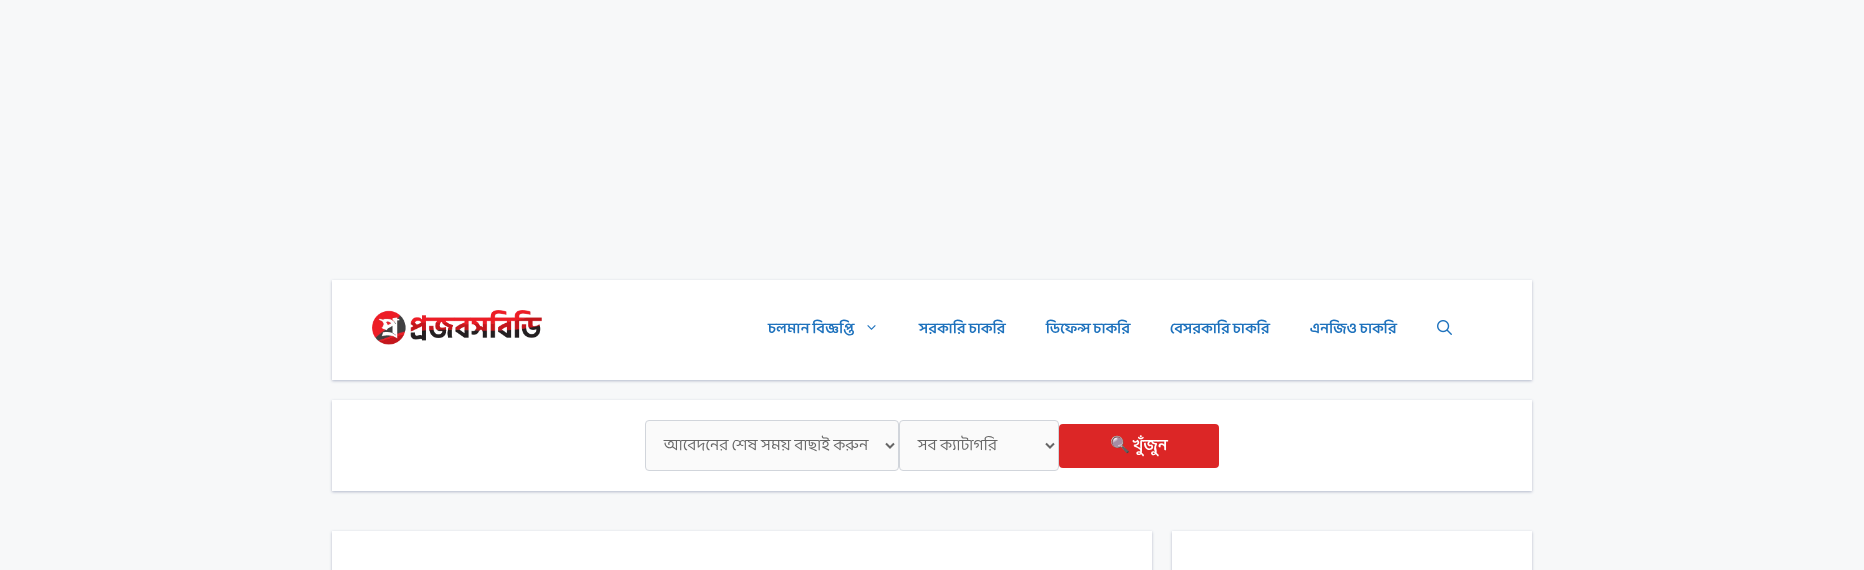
(async () => {
  const canvas = document.querySelector("canvas");
  canvas.width = 1864;
  canvas.height = 570;
  const ctx = canvas.getContext("2d");
  ctx.miterLimit = 4;
  ctx.fontKerning = "normal";
  async function loadImage(src) {
    const img = new Image();
    img.src = src;
    await img.decode();
    return img;
  }
  let path;

  ctx.fillStyle = "#f7f8f9";
  ctx.fillRect(0, 0, 1864, 570);
  ctx.fillStyle = "#ffffff";
  ctx.fillRect(332, 280, 1200, 100);
  ctx.save();
  path = new Path2D("M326 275H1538V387H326ZM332 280H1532V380H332Z");
  ctx.clip(path, "evenodd");
  ctx.fillStyle = "rgba(23, 43, 99, 0.3)";
  ctx.filter = "blur(1.5px)";
  ctx.beginPath();
  ctx.rect(332, 281, 1200, 100);
  ctx.fill();
  ctx.filter = "none";
  ctx.restore();
  ctx.drawImage(await loadImage("img/1.png"), 372, 310, 170, 35);
  ctx.drawImage(await loadImage("img/2.png"), 867, 325, 9, 5);
  ctx.drawImage(await loadImage("img/3.png"), 1437, 320, 15, 15);
  ctx.fillStyle = "rgba(23, 43, 99, 0.3)";
  ctx.filter = "blur(1.5px)";
  ctx.beginPath();
  ctx.rect(332, 401, 1200, 91);
  ctx.fill();
  ctx.filter = "none";
  ctx.fillStyle = "#ffffff";
  ctx.fillRect(332, 400, 1200, 91);
  ctx.fillStyle = "#fafafa";
  ctx.beginPath();
  ctx.roundRect(645.5, 420.5, 253, 50, 3.5);
  ctx.fill();
  ctx.strokeStyle = "#d1d5db";
  ctx.stroke();
  path = new Path2D("M886 443.5L890 447.5L894 443.5");
  ctx.strokeStyle = "#666666";
  ctx.lineWidth = 2;
  ctx.stroke(path);
  ctx.beginPath();
  ctx.roundRect(899.5, 420.5, 159, 50, 3.5);
  ctx.fill();
  ctx.strokeStyle = "#d1d5db";
  ctx.lineWidth = 1;
  ctx.stroke();
  path = new Path2D("M1046 443.5L1050 447.5L1054 443.5");
  ctx.strokeStyle = "#666666";
  ctx.lineWidth = 2;
  ctx.stroke(path);
  ctx.fillStyle = "#dc2626";
  ctx.beginPath();
  ctx.roundRect(1059, 424, 160, 44, 4);
  ctx.fill();
  ctx.fillStyle = "rgba(23, 43, 99, 0.3)";
  ctx.filter = "blur(1.5px)";
  ctx.beginPath();
  ctx.rect(332, 532, 820, 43);
  ctx.fill();
  ctx.filter = "none";
  ctx.fillStyle = "#ffffff";
  ctx.fillRect(332, 531, 820, 39);
  ctx.fillStyle = "rgba(23, 43, 99, 0.3)";
  ctx.filter = "blur(1.5px)";
  ctx.beginPath();
  ctx.rect(1172, 532, 360, 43);
  ctx.fill();
  ctx.filter = "none";
  ctx.fillStyle = "#ffffff";
  ctx.fillRect(1172, 531, 360, 39);
  ctx.wordSpacing = "-1px";
  ctx.font = "600 15px 'Baloo Da 2'";
  ctx.fillStyle = "#1e72bd";
  for (const [text, x, y] of [
    ["চলমান বিজ্ঞপ্তি", 768, 333],
    ["সরকারি চাকরি", 919, 333],
    ["ডিফেন্স চাকরি", 1046, 333],
    ["বেসরকারি চাকরি", 1170, 333],
    ["এনজিও চাকরি", 1310, 333],
  ]) {
    ctx.fillText(text, x, y);
  }
  ctx.wordSpacing = "0px";
  ctx.font = "16px 'Baloo Da 2'";
  ctx.fillStyle = "#666666";
  ctx.fillText("আবেদনের শেষ সময় বাছাই করুন", 664, 450);
  ctx.fillText("সব ক্যাটাগরি", 918, 450);
  ctx.font = "bold 16px Noto Color Emoji";
  ctx.fillStyle = "#ffffff";
  ctx.fillText("🔍", 1110, 450);
  ctx.font = "600 16px 'Baloo Da 2'";
  ctx.fillText("খুঁজুন", 1133, 450);
})();
